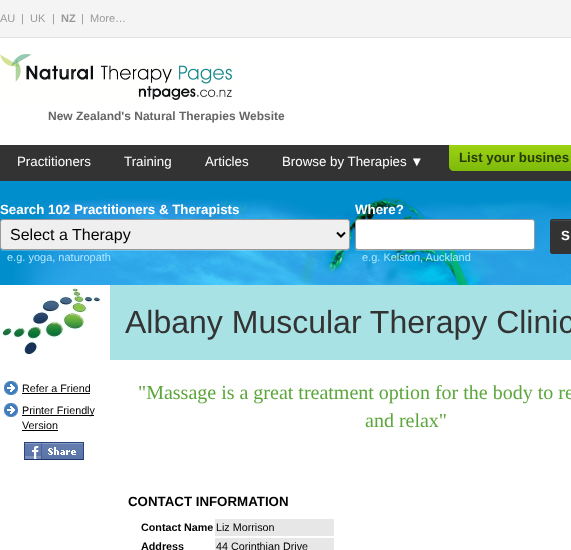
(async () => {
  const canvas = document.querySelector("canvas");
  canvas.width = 571;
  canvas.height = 550;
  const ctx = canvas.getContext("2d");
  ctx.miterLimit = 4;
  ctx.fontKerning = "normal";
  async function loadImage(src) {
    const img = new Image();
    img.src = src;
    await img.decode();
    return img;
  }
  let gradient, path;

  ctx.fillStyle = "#ffffff";
  ctx.fillRect(0, 0, 571, 550);
  ctx.fillStyle = "#f4f4f4";
  ctx.fillRect(0, 0, 571, 37);
  ctx.fillStyle = "#e2e2e2";
  ctx.fillRect(0, 37, 571, 1);
  ctx.drawImage(await loadImage("img/1.png"), 0, 54, 232, 46);
  ctx.fillStyle = "#333333";
  ctx.fillRect(0, 145, 571, 36);
  gradient = ctx.createLinearGradient(518, 145, 518, 171);
  gradient.addColorStop(0, "#9cd211");
  gradient.addColorStop(1, "#7eba0c");
  ctx.fillStyle = gradient;
  path = new Path2D("M449 145H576V166C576 169 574 171 571 171H454C451 171 449 169 449 166Z");
  ctx.fill(path);
  ctx.fillStyle = "#008ecd";
  ctx.fillRect(0, 181, 571, 104);
  ctx.drawImage(await loadImage("img/2.png"), 14, 197, 557, 88);
  ctx.fillStyle = "rgba(255, 255, 255, 0.25)";
  path = new Path2D("M0 247C0 249 1 251 3 251H347L349 250L350 247C350 249 349 250 347 250H3C1 250 0 249 0 247Z");
  ctx.fill(path);
  ctx.fillStyle = "#efefef";
  ctx.beginPath();
  ctx.roundRect(0.5, 219.5, 349, 30, 2.5);
  ctx.fill();
  ctx.strokeStyle = "#999999";
  ctx.stroke();
  path = new Path2D("M337 232.5L341 236.5L345 232.5");
  ctx.strokeStyle = "#000000";
  ctx.lineWidth = 2;
  ctx.stroke(path);
  ctx.fillStyle = "#333333";
  ctx.beginPath();
  ctx.roundRect(550, 219, 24, 35, 3);
  ctx.fill();
  ctx.fillStyle = "#474747";
  path = new Path2D("M553 221H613C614 221 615 222 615 223C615 217 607 220 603 220H563C559 220 551 217 551 223C551 222 552 221 553 221Z");
  ctx.fill(path);
  ctx.beginPath();
  ctx.roundRect(550.5, 219.5, 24, 34, 2.5);
  ctx.strokeStyle = "#333333";
  ctx.lineWidth = 1;
  ctx.stroke();
  ctx.fillStyle = "rgba(255, 255, 255, 0.25)";
  path = new Path2D("M355 247V248C355 250 356 251 358 251H532C534 251 535 250 535 248V247C535 249 534 250 532 250H358C356 250 355 249 355 247Z");
  ctx.fill(path);
  ctx.fillStyle = "#ffffff";
  ctx.beginPath();
  ctx.roundRect(355.5, 219.5, 179, 30, 2.5);
  ctx.fill();
  ctx.strokeStyle = "#999999";
  ctx.stroke();
  ctx.drawImage(await loadImage("img/3.png"), 1, 287, 100, 68);
  ctx.fillStyle = "#a8e2e4";
  ctx.fillRect(110, 285, 461, 75);
  ctx.drawImage(await loadImage("img/4.png"), 4, 381, 14, 14);
  ctx.fillStyle = "#000000";
  ctx.fillRect(22, 393, 68, 1);
  ctx.drawImage(await loadImage("img/4.png"), 4, 403, 14, 14);
  ctx.fillRect(22, 415, 72, 1);
  ctx.fillRect(22, 430, 36, 1);
  ctx.drawImage(await loadImage("img/5.png"), 24, 442, 60, 18);
  ctx.fillStyle = "#e7e7e7";
  ctx.fillRect(215, 519, 119, 17);
  ctx.fillRect(215, 538, 119, 12);
  ctx.font = "11px Liberation Sans";
  ctx.fillStyle = "#999999";
  for (const [text, x, y] of [
    ["AU", 0, 22],
    ["|", 21, 22],
    ["UK", 30, 22],
    ["|", 52, 22],
  ]) {
    ctx.fillText(text, x, y);
  }
  ctx.font = "bold 11px Liberation Sans";
  ctx.fillText("NZ", 61, 22);
  ctx.font = "11px Liberation Sans";
  ctx.fillText("|", 81, 22);
  ctx.fillText("More…", 90, 22);
  ctx.font = "bold 12px Liberation Sans";
  ctx.fillStyle = "#666666";
  ctx.fillText("New Zealand's Natural Therapies Website", 48, 120);
  ctx.font = "13.3px Liberation Sans";
  ctx.fillStyle = "#ffffff";
  for (const [text, x, y] of [
    ["Practitioners", 17, 166],
    ["Training", 124, 166],
    ["Articles", 205, 166],
    ["Browse by Therapies ▼", 282, 166],
  ]) {
    ctx.fillText(text, x, y);
  }
  ctx.font = "bold 13.3px Liberation Sans";
  ctx.fillStyle = "#273b00";
  ctx.fillText("List your busines", 459, 162);
  ctx.fillStyle = "#ffffff";
  ctx.fillText("Search 102 Practitioners & Therapists", 0, 214);
  ctx.font = "16px Liberation Sans";
  ctx.fillStyle = "#000000";
  ctx.fillText("Select a Therapy", 10, 240);
  ctx.font = "11px Liberation Sans";
  ctx.fillStyle = "#afe7ff";
  ctx.fillText("e.g. yoga, naturopath", 7, 261);
  ctx.font = "bold 13.3px Liberation Sans";
  ctx.fillStyle = "#ffffff";
  ctx.fillText("Where?", 355, 214);
  ctx.fillText("S", 561, 240);
  ctx.font = "11px Liberation Sans";
  ctx.fillStyle = "#afe7ff";
  ctx.fillText("e.g. Kelston, Auckland", 362, 261);
  ctx.font = "32px Liberation Sans";
  ctx.fillStyle = "#333333";
  ctx.fillText("Albany Muscular Therapy Clinic", 125, 333);
  ctx.font = "10.75px Liberation Sans";
  ctx.fillStyle = "#000000";
  for (const [text, x, y] of [
    ["Refer a Friend", 22, 392],
    ["Printer Friendly", 22, 414],
    ["Version", 22, 429],
  ]) {
    ctx.fillText(text, x, y);
  }
  ctx.font = "20px Liberation Serif";
  ctx.fillStyle = "#5ca63c";
  ctx.fillText("\"Massage is a great treatment option for the body to re", 138, 399);
  ctx.fillText("and relax\"", 365, 427);
  ctx.font = "bold 13.3px Liberation Sans";
  ctx.fillStyle = "#000000";
  ctx.fillText("CONTACT INFORMATION", 128, 506);
  ctx.font = "bold 10.75px Liberation Sans";
  ctx.fillText("Contact Name", 141, 531);
  ctx.font = "10.75px Liberation Sans";
  ctx.fillText("Liz Morrison", 216, 531);
  ctx.font = "bold 10.75px Liberation Sans";
  ctx.fillText("Address", 141, 550);
  ctx.font = "10.75px Liberation Sans";
  ctx.fillText("44 Corinthian Drive", 216, 550);
})();
